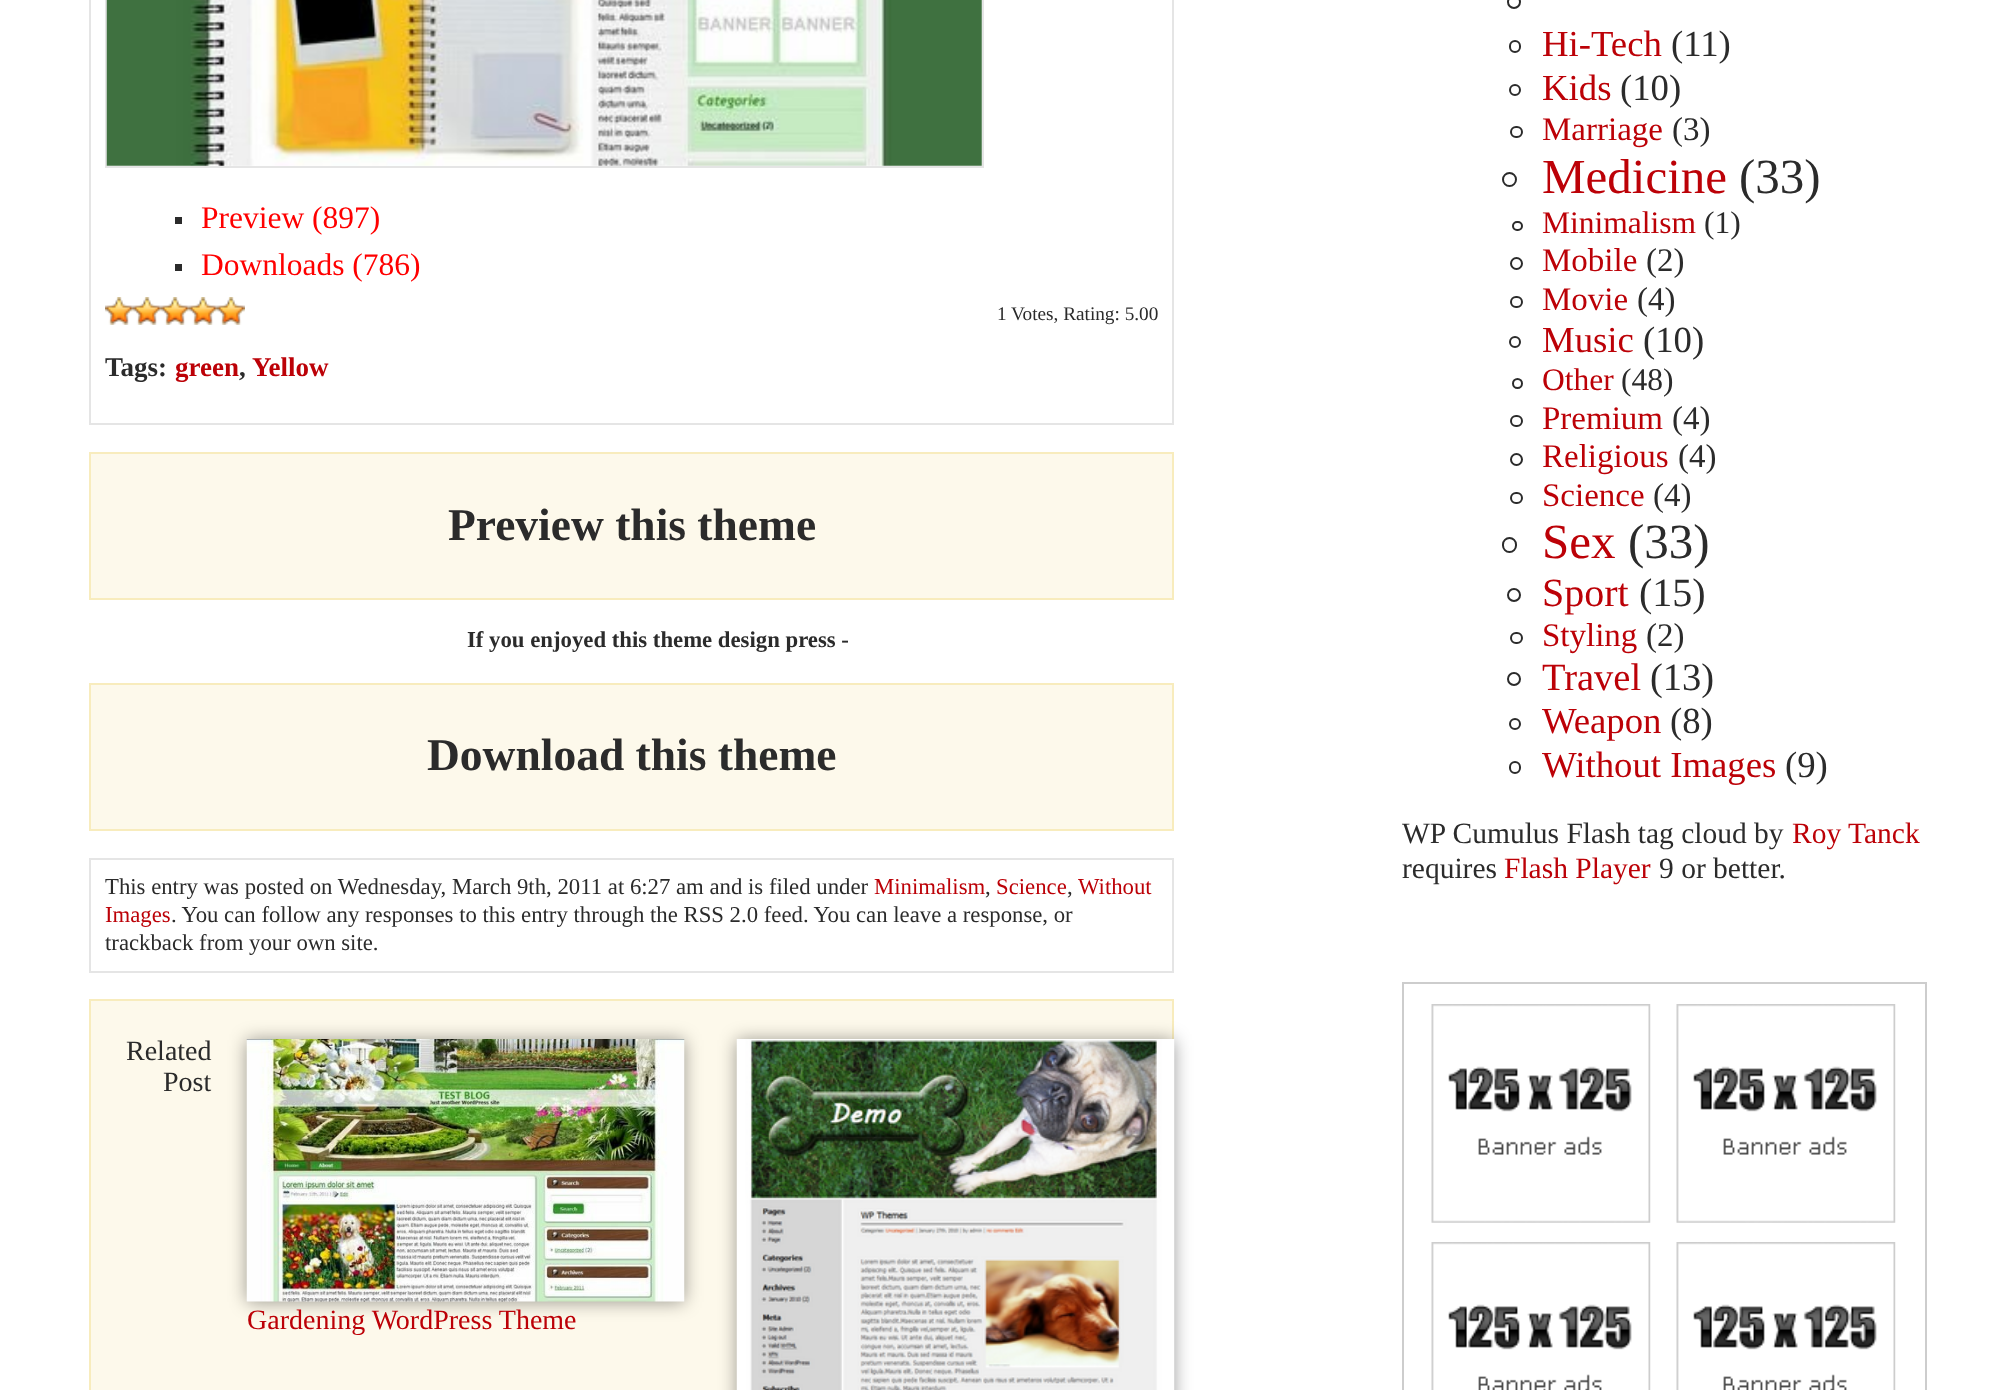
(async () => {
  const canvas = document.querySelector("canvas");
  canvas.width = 2015;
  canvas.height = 1390;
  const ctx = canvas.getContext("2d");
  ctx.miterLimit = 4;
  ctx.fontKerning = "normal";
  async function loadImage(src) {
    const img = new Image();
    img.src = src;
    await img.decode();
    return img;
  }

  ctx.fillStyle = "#ffffff";
  ctx.fillRect(0, 0, 2015, 1390);
  ctx.strokeStyle = "#e5e5e5";
  ctx.lineWidth = 2;
  ctx.strokeRect(90, -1, 1083, 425);
  ctx.strokeRect(106, -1, 877, 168);
  ctx.drawImage(await loadImage("img/1.png"), 106, 0, 876, 166);
  ctx.fillStyle = "#2b2b2b";
  ctx.fillRect(175, 217, 7, 7);
  ctx.fillRect(175, 264, 7, 7);
  ctx.drawImage(await loadImage("img/2.png"), 105, 297, 28, 28);
  ctx.drawImage(await loadImage("img/3.png"), 133, 297, 28, 28);
  ctx.drawImage(await loadImage("img/2.png"), 161, 297, 28, 28);
  ctx.drawImage(await loadImage("img/2.png"), 189, 297, 28, 28);
  ctx.drawImage(await loadImage("img/2.png"), 217, 297, 28, 28);
  ctx.fillStyle = "#fdf9eb";
  ctx.beginPath();
  ctx.rect(90, 453, 1083, 146);
  ctx.fill();
  ctx.strokeStyle = "#f8ecbd";
  ctx.stroke();
  ctx.beginPath();
  ctx.rect(90, 684, 1083, 146);
  ctx.fill();
  ctx.stroke();
  ctx.strokeStyle = "#e5e5e5";
  ctx.strokeRect(90, 859, 1083, 113);
  ctx.beginPath();
  ctx.rect(90, 1000, 1083, 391);
  ctx.fill();
  ctx.strokeStyle = "#f8ecbd";
  ctx.stroke();
  ctx.fillStyle = "rgba(0, 0, 0, 0.4)";
  ctx.filter = "blur(9px)";
  ctx.beginPath();
  ctx.rect(737, 1040, 437, 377);
  ctx.fill();
  ctx.filter = "none";
  ctx.drawImage(await loadImage("img/4.png"), 736, 1039, 439, 351);
  ctx.filter = "blur(9px)";
  ctx.beginPath();
  ctx.rect(247, 1040, 437, 262);
  ctx.fill();
  ctx.filter = "none";
  ctx.drawImage(await loadImage("img/5.png"), 246, 1039, 439, 263);
  ctx.beginPath();
  ctx.arc(1514, 2, 6, 0, Math.PI * 2);
  ctx.strokeStyle = "#2b2b2b";
  ctx.stroke();
  ctx.beginPath();
  ctx.roundRect(1510, 41, 10, 11, 5);
  ctx.stroke();
  ctx.beginPath();
  ctx.arc(1515, 90, 5, 0, Math.PI * 2);
  ctx.stroke();
  ctx.beginPath();
  ctx.roundRect(1511, 127, 11, 10, 5);
  ctx.stroke();
  ctx.beginPath();
  ctx.arc(1509.5, 179.5, 6.5, 0, Math.PI * 2);
  ctx.stroke();
  ctx.beginPath();
  ctx.roundRect(1513, 222, 9, 8, 4);
  ctx.stroke();
  ctx.beginPath();
  ctx.arc(1516.5, 263.5, 5.5, 0, Math.PI * 2);
  ctx.stroke();
  ctx.beginPath();
  ctx.roundRect(1511, 297, 11, 10, 5);
  ctx.stroke();
  ctx.beginPath();
  ctx.arc(1515, 342, 5, 0, Math.PI * 2);
  ctx.stroke();
  ctx.beginPath();
  ctx.arc(1517.5, 383.5, 4.5, 0, Math.PI * 2);
  ctx.stroke();
  ctx.beginPath();
  ctx.roundRect(1511, 416, 11, 10, 5);
  ctx.stroke();
  ctx.beginPath();
  ctx.arc(1516.5, 459.5, 5.5, 0, Math.PI * 2);
  ctx.stroke();
  ctx.beginPath();
  ctx.roundRect(1511, 493, 11, 10, 5);
  ctx.stroke();
  ctx.beginPath();
  ctx.roundRect(1503, 538, 13, 14, 6.5);
  ctx.stroke();
  ctx.beginPath();
  ctx.arc(1514, 595, 6, 0, Math.PI * 2);
  ctx.stroke();
  ctx.beginPath();
  ctx.roundRect(1511, 633, 11, 10, 5);
  ctx.stroke();
  ctx.beginPath();
  ctx.arc(1514, 679, 6, 0, Math.PI * 2);
  ctx.stroke();
  ctx.beginPath();
  ctx.arc(1515, 724, 5, 0, Math.PI * 2);
  ctx.stroke();
  ctx.beginPath();
  ctx.roundRect(1510, 762, 10, 11, 5);
  ctx.stroke();
  ctx.strokeStyle = "#cdcdcd";
  ctx.strokeRect(1403, 983, 523, 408);
  ctx.drawImage(await loadImage("img/6.png"), 1431, 1004, 220, 219);
  ctx.drawImage(await loadImage("img/7.png"), 1676, 1004, 220, 219);
  ctx.drawImage(await loadImage("img/8.png"), 1431, 1242, 220, 148);
  ctx.drawImage(await loadImage("img/9.png"), 1676, 1242, 220, 148);
  ctx.font = "31.5px Liberation Serif";
  ctx.fillStyle = "#ff0000";
  ctx.fillText("Preview (897)", 201, 228);
  ctx.fillText("Downloads (786)", 201, 275);
  ctx.font = "19.25px Liberation Serif";
  ctx.fillStyle = "#2b2b2b";
  ctx.fillText("1 Votes, Rating: 5.00", 997, 320);
  ctx.font = "bold 27px Liberation Serif";
  ctx.fillText("Tags:", 105, 376);
  ctx.fillStyle = "#bc0107";
  ctx.fillText("green", 175, 376);
  ctx.fillStyle = "#2b2b2b";
  ctx.fillText(",", 239, 376);
  ctx.fillStyle = "#bc0107";
  ctx.fillText("Yellow", 252, 376);
  ctx.font = "bold 45.5px Liberation Serif";
  ctx.fillStyle = "#2b2b2b";
  ctx.fillText("Preview this theme", 448, 540);
  ctx.font = "bold 22.75px Liberation Serif";
  ctx.fillText("If you enjoyed this theme design press -", 467, 647);
  ctx.font = "bold 45.5px Liberation Serif";
  ctx.fillText("Download this theme", 427, 770);
  ctx.font = "22.75px Liberation Serif";
  ctx.fillText("This entry was posted on Wednesday, March 9th, 2011 at 6:27 am and is filed under", 105, 894);
  ctx.fillStyle = "#bc0107";
  ctx.fillText("Minimalism", 874, 894);
  ctx.fillStyle = "#2b2b2b";
  ctx.fillText(",", 985, 894);
  ctx.fillStyle = "#bc0107";
  ctx.fillText("Science", 996, 894);
  ctx.fillStyle = "#2b2b2b";
  ctx.fillText(",", 1067, 894);
  ctx.fillStyle = "#bc0107";
  ctx.fillText("Without", 1078, 894);
  ctx.fillText("Images", 105, 922);
  ctx.fillStyle = "#2b2b2b";
  ctx.fillText(". You can follow any responses to this entry through the RSS 2.0 feed. You can leave a response, or", 171, 922);
  ctx.fillText("trackback from your own site.", 105, 950);
  ctx.font = "28px Liberation Serif";
  ctx.fillText("Related", 126, 1060);
  ctx.fillText("Post", 163, 1091);
  ctx.fillStyle = "#bc0107";
  ctx.fillText("Gardening WordPress Theme", 247, 1329);
  ctx.font = "36.75px Liberation Serif";
  ctx.fillText("Hi-Tech", 1542, 56);
  ctx.fillStyle = "#2b2b2b";
  ctx.fillText("(11)", 1671, 56);
  ctx.fillStyle = "#bc0107";
  ctx.fillText("Kids", 1542, 100);
  ctx.fillStyle = "#2b2b2b";
  ctx.fillText("(10)", 1620, 100);
  ctx.font = "33px Liberation Serif";
  ctx.fillStyle = "#bc0107";
  ctx.fillText("Marriage", 1542, 140);
  ctx.fillStyle = "#2b2b2b";
  ctx.fillText("(3)", 1672, 140);
  ctx.font = "49px Liberation Serif";
  ctx.fillStyle = "#bc0107";
  ctx.fillText("Medicine", 1542, 193);
  ctx.fillStyle = "#2b2b2b";
  ctx.fillText("(33)", 1739, 193);
  ctx.font = "31.5px Liberation Serif";
  ctx.fillStyle = "#bc0107";
  ctx.fillText("Minimalism", 1542, 233);
  ctx.fillStyle = "#2b2b2b";
  ctx.fillText("(1)", 1704, 233);
  ctx.font = "33px Liberation Serif";
  ctx.fillStyle = "#bc0107";
  ctx.fillText("Mobile", 1542, 271);
  ctx.fillStyle = "#2b2b2b";
  ctx.fillText("(2)", 1646, 271);
  ctx.fillStyle = "#bc0107";
  ctx.fillText("Movie", 1542, 310);
  ctx.fillStyle = "#2b2b2b";
  ctx.fillText("(4)", 1637, 310);
  ctx.font = "36.75px Liberation Serif";
  ctx.fillStyle = "#bc0107";
  ctx.fillText("Music", 1542, 352);
  ctx.fillStyle = "#2b2b2b";
  ctx.fillText("(10)", 1643, 352);
  ctx.font = "31.5px Liberation Serif";
  ctx.fillStyle = "#bc0107";
  ctx.fillText("Other", 1542, 390);
  ctx.fillStyle = "#2b2b2b";
  ctx.fillText("(48)", 1621, 390);
  ctx.font = "33px Liberation Serif";
  ctx.fillStyle = "#bc0107";
  ctx.fillText("Premium", 1542, 429);
  ctx.fillStyle = "#2b2b2b";
  ctx.fillText("(4)", 1672, 429);
  ctx.fillStyle = "#bc0107";
  ctx.fillText("Religious", 1542, 467);
  ctx.fillStyle = "#2b2b2b";
  ctx.fillText("(4)", 1678, 467);
  ctx.fillStyle = "#bc0107";
  ctx.fillText("Science", 1542, 506);
  ctx.fillStyle = "#2b2b2b";
  ctx.fillText("(4)", 1653, 506);
  ctx.font = "49px Liberation Serif";
  ctx.fillStyle = "#bc0107";
  ctx.fillText("Sex", 1542, 558);
  ctx.fillStyle = "#2b2b2b";
  ctx.fillText("(33)", 1628, 558);
  ctx.font = "40px Liberation Serif";
  ctx.fillStyle = "#bc0107";
  ctx.fillText("Sport", 1542, 606);
  ctx.fillStyle = "#2b2b2b";
  ctx.fillText("(15)", 1639, 606);
  ctx.font = "33px Liberation Serif";
  ctx.fillStyle = "#bc0107";
  ctx.fillText("Styling", 1542, 646);
  ctx.fillStyle = "#2b2b2b";
  ctx.fillText("(2)", 1646, 646);
  ctx.font = "38.5px Liberation Serif";
  ctx.fillStyle = "#bc0107";
  ctx.fillText("Travel", 1542, 690);
  ctx.fillStyle = "#2b2b2b";
  ctx.fillText("(13)", 1650, 690);
  ctx.font = "36.75px Liberation Serif";
  ctx.fillStyle = "#bc0107";
  ctx.fillText("Weapon", 1542, 733);
  ctx.fillStyle = "#2b2b2b";
  ctx.fillText("(8)", 1670, 733);
  ctx.fillStyle = "#bc0107";
  ctx.fillText("Without Images", 1542, 777);
  ctx.fillStyle = "#2b2b2b";
  ctx.fillText("(9)", 1785, 777);
  ctx.font = "29.5px Liberation Serif";
  ctx.fillText("WP Cumulus Flash tag cloud by", 1402, 843);
  ctx.fillStyle = "#bc0107";
  ctx.fillText("Roy Tanck", 1792, 843);
  ctx.fillStyle = "#2b2b2b";
  ctx.fillText("requires", 1402, 878);
  ctx.fillStyle = "#bc0107";
  ctx.fillText("Flash Player", 1504, 878);
  ctx.fillStyle = "#2b2b2b";
  ctx.fillText("9 or better.", 1659, 878);
})();
